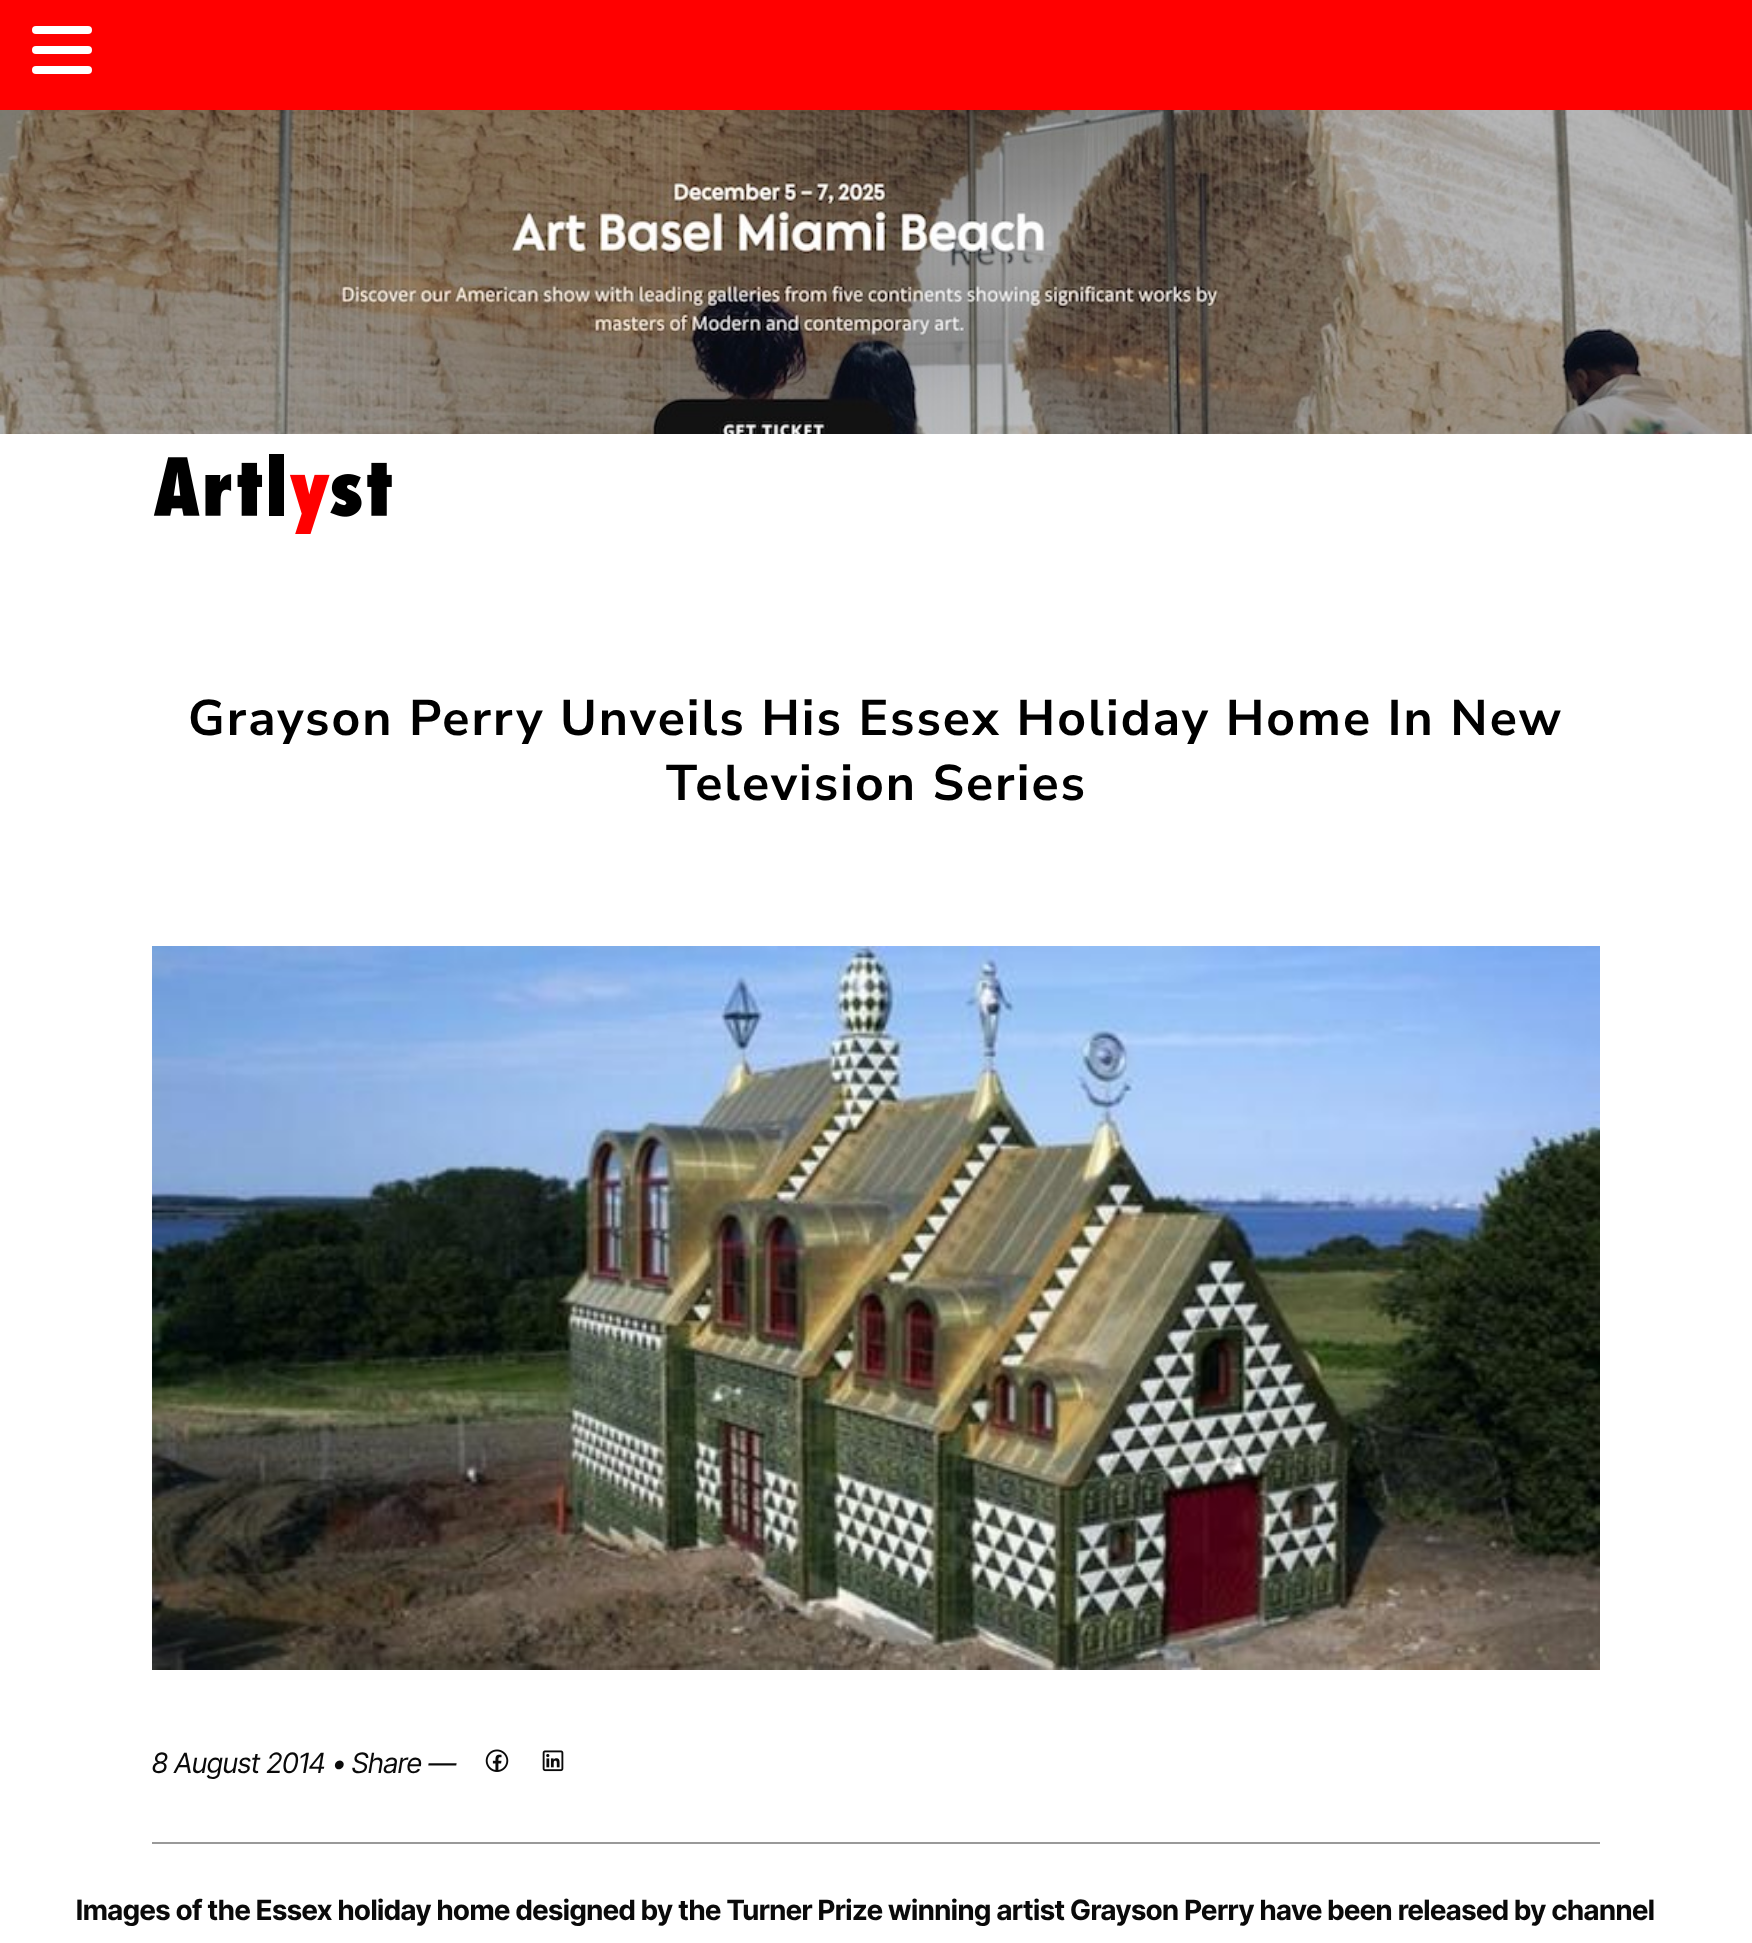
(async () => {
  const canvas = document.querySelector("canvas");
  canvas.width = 1752;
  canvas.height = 1943;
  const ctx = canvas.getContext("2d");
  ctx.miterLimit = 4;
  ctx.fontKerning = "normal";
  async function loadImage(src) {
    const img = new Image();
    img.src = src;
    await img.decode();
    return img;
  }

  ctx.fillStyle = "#ffffff";
  ctx.fillRect(0, 0, 1752, 1943);
  ctx.fillStyle = "#ff0000";
  ctx.fillRect(0, 0, 1752, 110);
  ctx.fillStyle = "#ffffff";
  ctx.beginPath();
  ctx.roundRect(32, 26, 60, 8, 4);
  ctx.fill();
  ctx.beginPath();
  ctx.roundRect(32, 46, 60, 8, 4);
  ctx.fill();
  ctx.beginPath();
  ctx.roundRect(32, 66, 60, 8, 4);
  ctx.fill();
  ctx.drawImage(await loadImage("img/1.png"), 0, 110, 1752, 324);
  ctx.drawImage(await loadImage("img/2.png"), 153, 454, 239, 80);
  ctx.drawImage(await loadImage("img/3.png"), 152, 946, 1448, 724);
  ctx.fillStyle = "#999999";
  ctx.fillRect(152, 1842, 1448, 2);
  ctx.drawImage(await loadImage("img/4.png"), 485, 1749, 24, 23);
  ctx.drawImage(await loadImage("img/5.png"), 542, 1750, 22, 22);
  ctx.letterSpacing = "2px";
  ctx.font = "bold 50px Nunito Sans";
  ctx.fillStyle = "#000000";
  ctx.fillText("Grayson Perry Unveils His Essex Holiday Home In New", 188, 735);
  ctx.fillText("Television Series", 666, 800);
  ctx.letterSpacing = "0px";
  ctx.font = "italic 28px Inter Tight";
  ctx.fillStyle = "#0a0a0a";
  ctx.fillText("8 August 2014 • Share —", 152, 1773);
  ctx.font = "bold 28px Inter Tight";
  ctx.fillText("Images of the Essex holiday home designed by the Turner Prize winning artist Grayson Perry have been released by channel", 76, 1920);
})();
